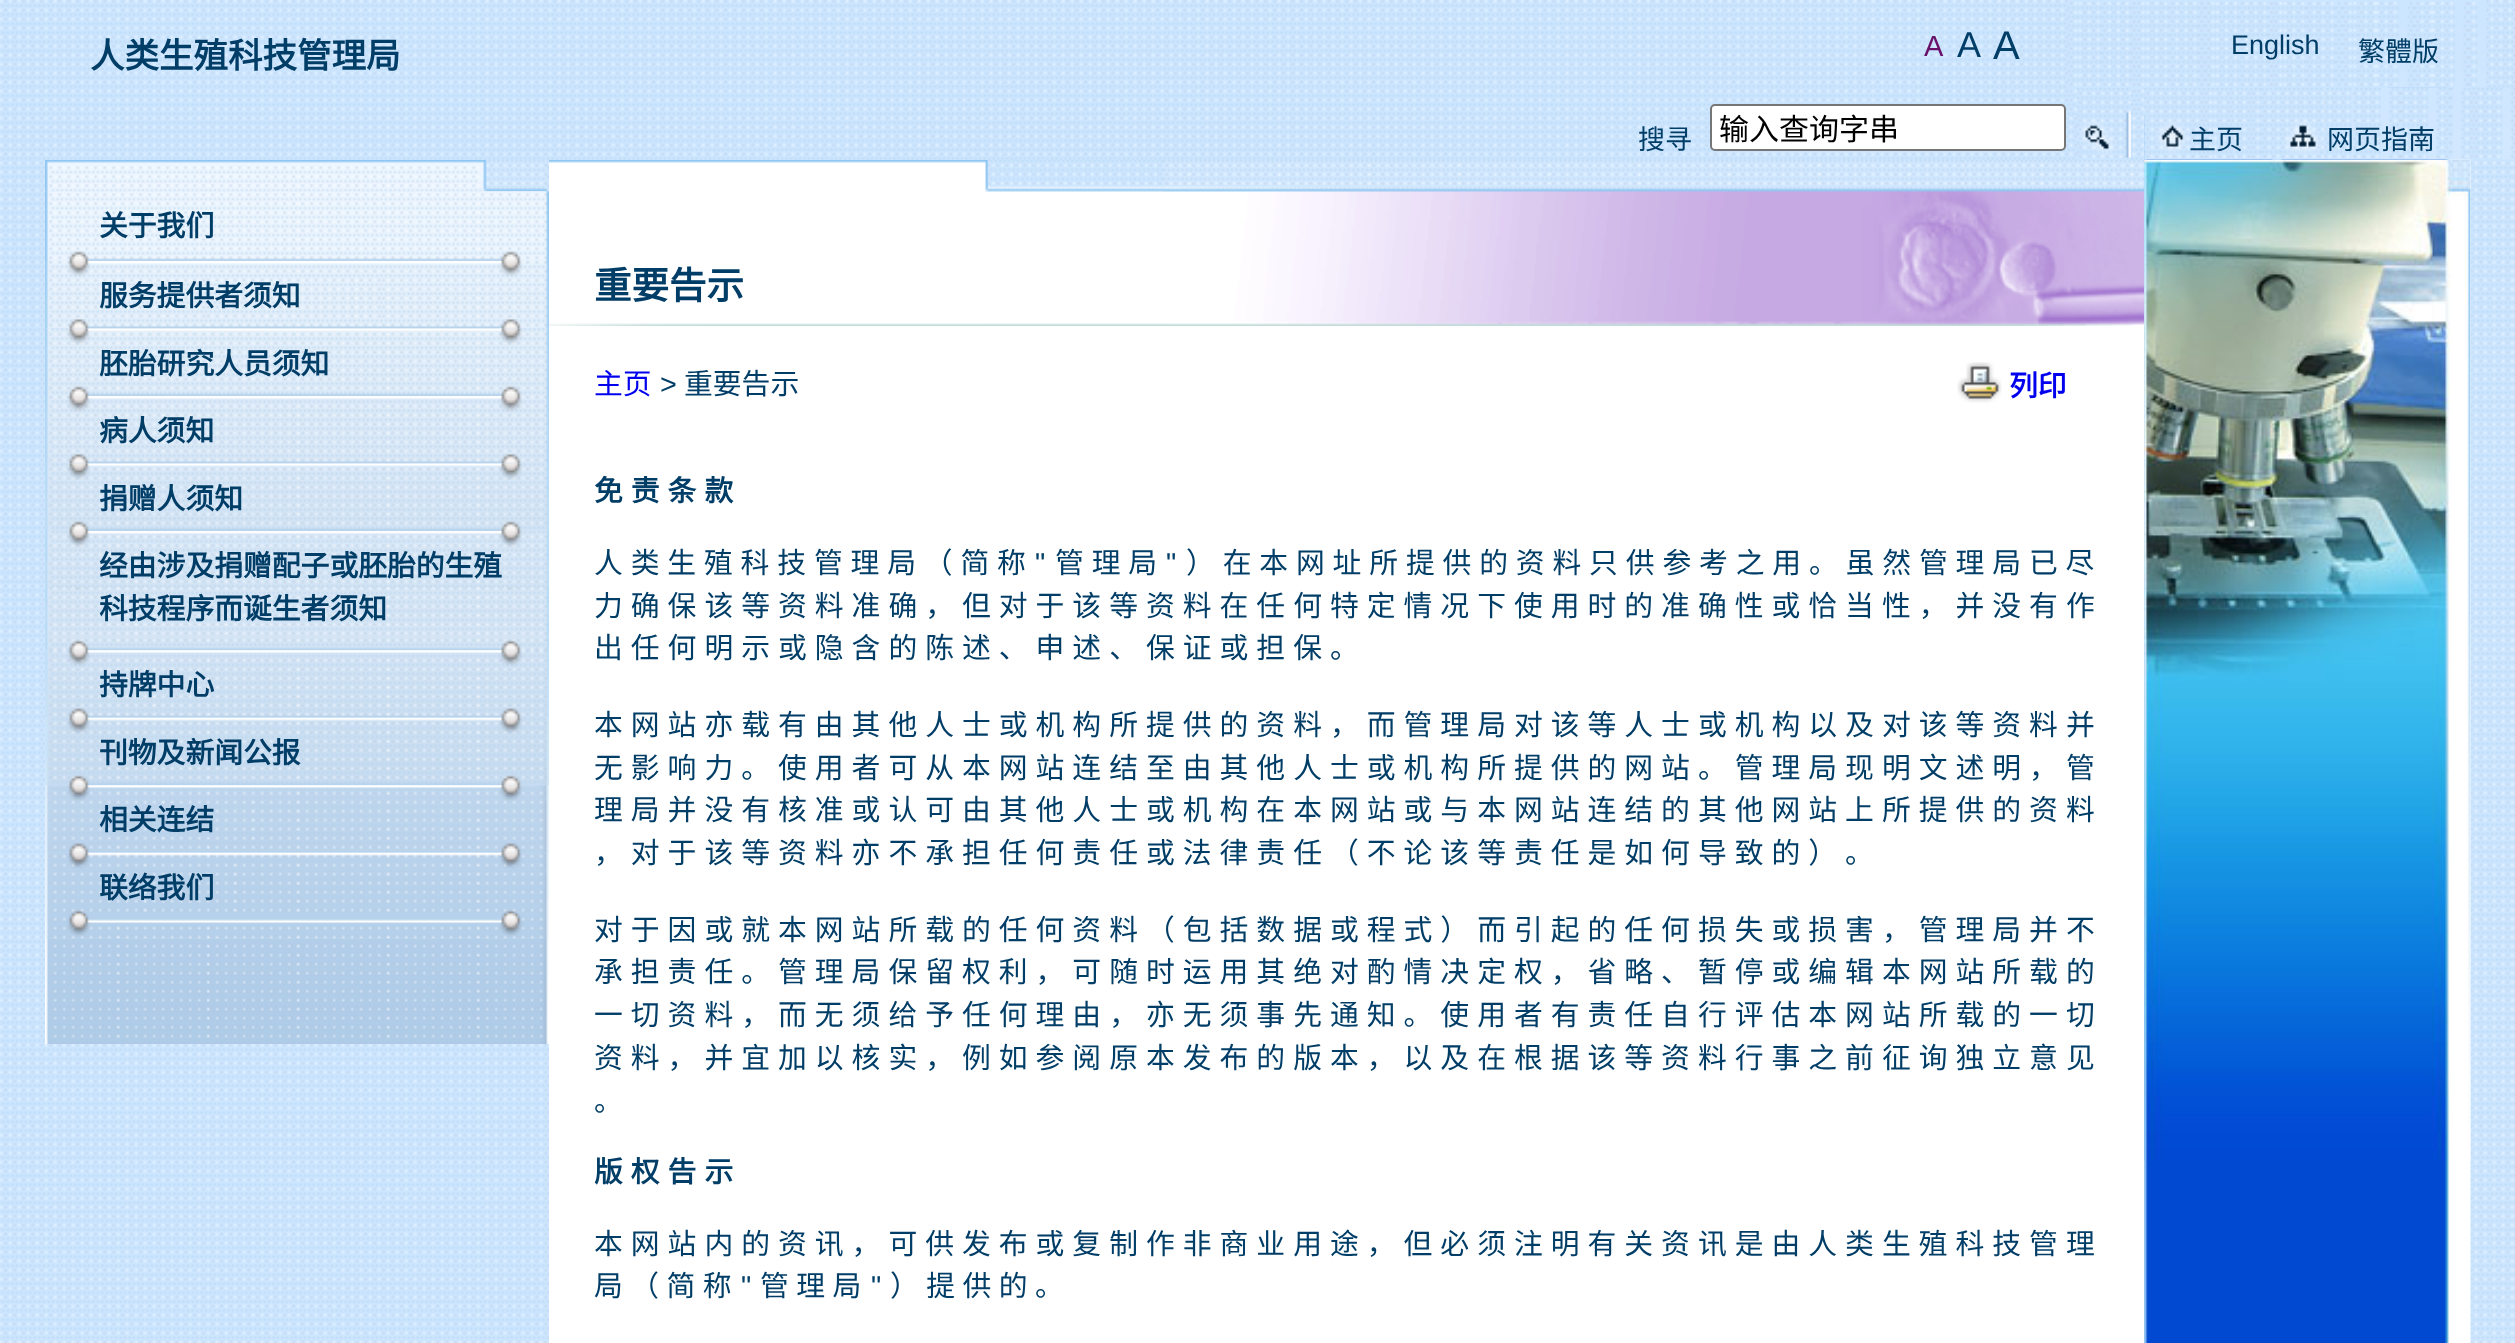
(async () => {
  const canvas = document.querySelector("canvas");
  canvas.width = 2515;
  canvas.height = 1343;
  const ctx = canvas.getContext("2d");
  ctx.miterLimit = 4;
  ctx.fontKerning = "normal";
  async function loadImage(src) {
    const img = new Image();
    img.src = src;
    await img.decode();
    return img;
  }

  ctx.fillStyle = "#ffffff";
  ctx.fillRect(0, 0, 2515, 1343);
  ctx.drawImage(await loadImage("img/1.png"), 0, 0, 2515, 1343);
  ctx.drawImage(await loadImage("img/2.png"), 2144, 87, 327, 1256);
  ctx.drawImage(await loadImage("img/3.png"), 2387, 0, 128, 88);
  ctx.drawImage(await loadImage("img/4.png"), 2068, 0, 320, 117);
  ctx.drawImage(await loadImage("img/5.png"), 2358, 0, 128, 88);
  ctx.beginPath();
  ctx.roundRect(1711, 105, 354, 45, 4);
  ctx.fill();
  ctx.strokeStyle = "#767676";
  ctx.lineWidth = 2;
  ctx.stroke();
  ctx.drawImage(await loadImage("img/6.png"), 2077, 88, 54, 72);
  ctx.drawImage(await loadImage("img/7.png"), 2144, 88, 138, 72);
  ctx.drawImage(await loadImage("img/8.png"), 2272, 87, 243, 73);
  ctx.drawImage(await loadImage("img/9.png"), 45, 938, 504, 106);
  ctx.drawImage(await loadImage("img/10.png"), 45, 160, 502, 32);
  ctx.drawImage(await loadImage("img/11.png"), 45, 191, 504, 70);
  ctx.drawImage(await loadImage("img/12.png"), 45, 261, 504, 68);
  ctx.drawImage(await loadImage("img/13.png"), 45, 328, 504, 68);
  ctx.drawImage(await loadImage("img/14.png"), 45, 396, 504, 68);
  ctx.drawImage(await loadImage("img/15.png"), 45, 463, 504, 68);
  ctx.drawImage(await loadImage("img/16.png"), 45, 531, 504, 120);
  ctx.drawImage(await loadImage("img/17.png"), 45, 650, 504, 68);
  ctx.drawImage(await loadImage("img/18.png"), 45, 717, 504, 69);
  ctx.drawImage(await loadImage("img/19.png"), 45, 785, 504, 68);
  ctx.drawImage(await loadImage("img/20.png"), 45, 852, 504, 87);
  ctx.drawImage(await loadImage("img/21.png"), 987, 160, 1158, 167);
  ctx.drawImage(await loadImage("img/22.png"), 1163, 160, 982, 167);
  ctx.drawImage(await loadImage("img/23.png"), 549, 160, 439, 166);
  ctx.drawImage(await loadImage("img/24.png"), 2144, 159, 327, 1002);
  ctx.fillRect(549, 326, 1595, 1017);
  ctx.drawImage(await loadImage("img/25.png"), 1957, 362, 45, 41);
  ctx.font = "bold 34.5px Noto Sans CJK SC";
  ctx.fillStyle = "#003d67";
  ctx.fillText("人类生殖科技管理局", 90, 68);
  ctx.font = "29px Liberation Sans";
  ctx.fillStyle = "#691068";
  ctx.fillText("A", 1924, 56);
  ctx.font = "36px Liberation Sans";
  ctx.fillStyle = "#003d67";
  ctx.fillText("A", 1957, 57);
  ctx.font = "40px Liberation Sans";
  ctx.fillText("A", 1993, 59);
  ctx.font = "27px Liberation Sans";
  ctx.fillText("English", 2231, 54);
  ctx.font = "27px Noto Sans CJK SC";
  ctx.fillText("繁體版", 2358, 61);
  ctx.fillText("搜寻", 1638, 149);
  ctx.font = "30px Noto Sans CJK SC";
  ctx.fillStyle = "#000000";
  ctx.fillText("输入查询字串", 1719, 140);
  ctx.font = "27px Noto Sans CJK SC";
  ctx.fillStyle = "#003d67";
  ctx.fillText("主页", 2189, 149);
  ctx.fillText("网页指南", 2327, 149);
  ctx.font = "bold 28.8px Noto Sans CJK SC";
  for (const [text, x, y] of [
    ["关于我们", 99, 236],
    ["服务提供者须知", 99, 306],
    ["胚胎研究人员须知", 99, 374],
    ["病人须知", 99, 441],
    ["捐赠人须知", 99, 509],
    ["经由涉及捐赠配子或胚胎的生殖", 99, 576],
    ["科技程序而诞生者须知", 99, 619],
    ["持牌中心", 99, 695],
    ["刊物及新闻公报", 99, 763],
    ["相关连结", 99, 830],
    ["联络我们", 99, 898],
  ]) {
    ctx.fillText(text, x, y);
  }
  ctx.font = "bold 37.5px Noto Sans CJK SC";
  ctx.fillText("重要告示", 594, 299);
  ctx.font = "28.8px Noto Sans CJK SC";
  ctx.fillStyle = "#0000ee";
  ctx.fillText("主页", 594, 394);
  ctx.font = "28.8px Liberation Sans";
  ctx.fillStyle = "#003d67";
  ctx.fillText(">", 660, 394);
  ctx.font = "28.8px Noto Sans CJK SC";
  ctx.fillText("重要告示", 684, 394);
  ctx.font = "bold 28.8px Noto Sans CJK SC";
  ctx.fillStyle = "#0000ee";
  ctx.fillText("列印", 2009, 396);
  ctx.wordSpacing = "1.55px";
  ctx.fillStyle = "#003d67";
  ctx.fillText("免 责 条 款", 594, 501);
  ctx.wordSpacing = "1.4px";
  ctx.font = "28.8px Noto Sans CJK SC";
  ctx.fillText("人 类 生 殖 科 技 管 理 局 （ 简 称", 594, 573);
  ctx.wordSpacing = "0px";
  ctx.font = "28.8px Liberation Sans";
  ctx.fillText("\"", 1035, 573);
  ctx.wordSpacing = "1.4px";
  ctx.font = "28.8px Noto Sans CJK SC";
  ctx.fillText("管 理 局", 1055, 573);
  ctx.wordSpacing = "0px";
  ctx.font = "28.8px Liberation Sans";
  ctx.fillText("\"", 1166, 573);
  ctx.wordSpacing = "1.4px";
  ctx.font = "28.8px Noto Sans CJK SC";
  ctx.fillText("） 在 本 网 址 所 提 供 的 资 料 只 供 参 考 之 用 。 虽 然 管 理 局 已 尽", 1186, 573);
  ctx.wordSpacing = "1.55px";
  for (const [text, x, y] of [
    ["力 确 保 该 等 资 料 准 确 ， 但 对 于 该 等 资 料 在 任 何 特 定 情 况 下 使 用 时 的 准 确 性 或 恰 当 性 ， 并 没 有 作", 594, 616],
    ["出 任 何 明 示 或 隐 含 的 陈 述 、 申 述 、 保 证 或 担 保 。", 594, 658],
    ["本 网 站 亦 载 有 由 其 他 人 士 或 机 构 所 提 供 的 资 料 ， 而 管 理 局 对 该 等 人 士 或 机 构 以 及 对 该 等 资 料 并", 594, 735],
    ["无 影 响 力 。 使 用 者 可 从 本 网 站 连 结 至 由 其 他 人 士 或 机 构 所 提 供 的 网 站 。 管 理 局 现 明 文 述 明 ， 管", 594, 778],
    ["理 局 并 没 有 核 准 或 认 可 由 其 他 人 士 或 机 构 在 本 网 站 或 与 本 网 站 连 结 的 其 他 网 站 上 所 提 供 的 资 料", 594, 820],
    ["， 对 于 该 等 资 料 亦 不 承 担 任 何 责 任 或 法 律 责 任 （ 不 论 该 等 责 任 是 如 何 导 致 的 ） 。", 594, 863],
    ["对 于 因 或 就 本 网 站 所 载 的 任 何 资 料 （ 包 括 数 据 或 程 式 ） 而 引 起 的 任 何 损 失 或 损 害 ， 管 理 局 并 不", 594, 940],
    ["承 担 责 任 。 管 理 局 保 留 权 利 ， 可 随 时 运 用 其 绝 对 酌 情 决 定 权 ， 省 略 、 暂 停 或 编 辑 本 网 站 所 载 的", 594, 982],
    ["一 切 资 料 ， 而 无 须 给 予 任 何 理 由 ， 亦 无 须 事 先 通 知 。 使 用 者 有 责 任 自 行 评 估 本 网 站 所 载 的 一 切", 594, 1025],
    ["资 料 ， 并 宜 加 以 核 实 ， 例 如 参 阅 原 本 发 布 的 版 本 ， 以 及 在 根 据 该 等 资 料 行 事 之 前 征 询 独 立 意 见", 594, 1068],
  ]) {
    ctx.fillText(text, x, y);
  }
  ctx.wordSpacing = "0px";
  ctx.fillText("。", 594, 1111);
  ctx.wordSpacing = "1.55px";
  ctx.font = "bold 28.8px Noto Sans CJK SC";
  ctx.fillText("版 权 告 示", 594, 1182);
  ctx.font = "28.8px Noto Sans CJK SC";
  ctx.fillText("本 网 站 内 的 资 讯 ， 可 供 发 布 或 复 制 作 非 商 业 用 途 ， 但 必 须 注 明 有 关 资 讯 是 由 人 类 生 殖 科 技 管 理", 594, 1254);
  ctx.wordSpacing = "1px";
  ctx.fillText("局 （ 简 称", 594, 1296);
  ctx.wordSpacing = "0px";
  ctx.font = "28.8px Liberation Sans";
  ctx.fillText("\"", 741, 1296);
  ctx.wordSpacing = "1px";
  ctx.font = "28.8px Noto Sans CJK SC";
  ctx.fillText("管 理 局", 760, 1296);
  ctx.wordSpacing = "0px";
  ctx.font = "28.8px Liberation Sans";
  ctx.fillText("\"", 871, 1296);
  ctx.wordSpacing = "1px";
  ctx.font = "28.8px Noto Sans CJK SC";
  ctx.fillText("） 提 供 的 。", 890, 1296);
})();
